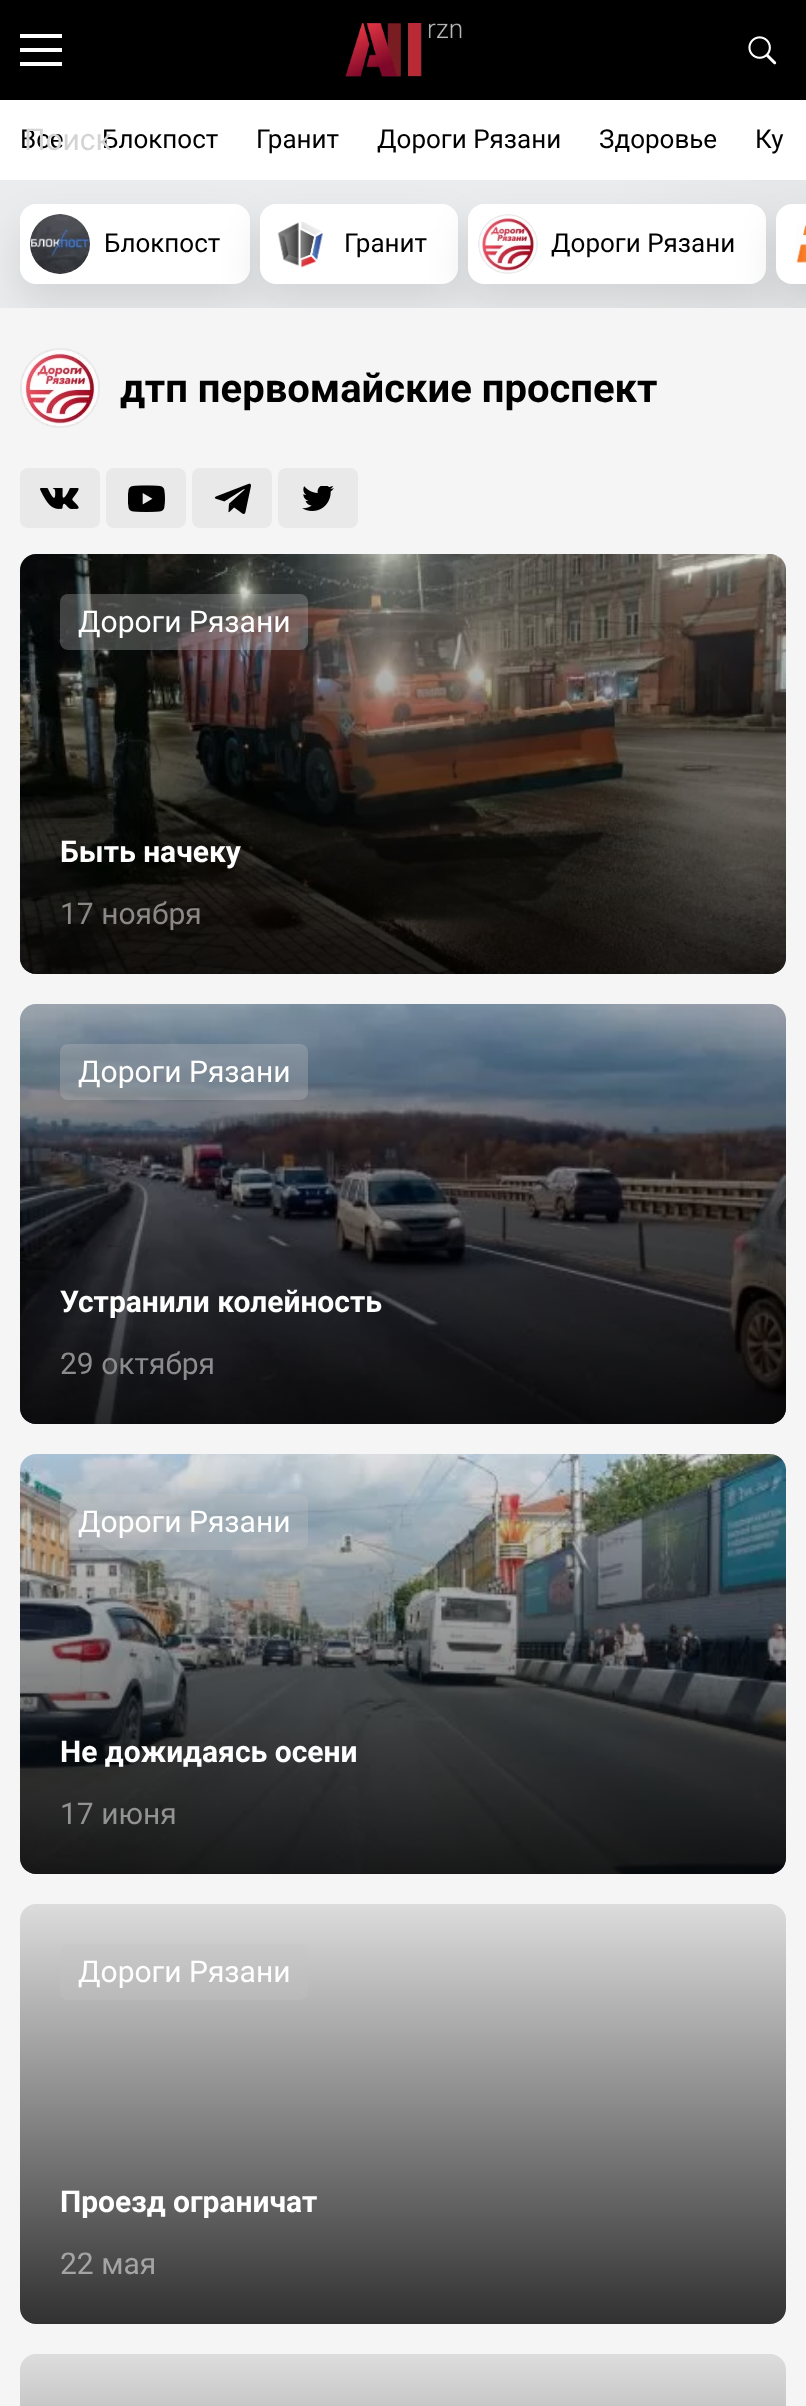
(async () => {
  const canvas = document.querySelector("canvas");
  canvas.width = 806;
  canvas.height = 2406;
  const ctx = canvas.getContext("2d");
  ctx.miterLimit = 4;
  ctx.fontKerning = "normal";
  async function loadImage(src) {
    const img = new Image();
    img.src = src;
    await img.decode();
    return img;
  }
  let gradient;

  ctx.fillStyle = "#f5f5f5";
  ctx.fillRect(0, 0, 806, 2406);
  for (const [x, y, w, h, color] of [
    [0, 0, 806, 100, "#000000"],
    [20, 48, 42, 4, "#ffffff"],
    [20, 34, 42, 4, "#ffffff"],
    [20, 62, 42, 4, "#ffffff"],
  ]) {
    ctx.fillStyle = color;
    ctx.fillRect(x, y, w, h);
  }
  ctx.drawImage(await loadImage("img/1.png"), 345, 23, 117, 54);
  ctx.drawImage(await loadImage("img/2.png"), 748, 36, 29, 29);
  ctx.fillStyle = "#eaeced";
  ctx.fillRect(0, 180, 606, 128);
  ctx.drawImage(await loadImage("img/7.png"), 20, 348, 80, 80);
  ctx.save();
  ctx.beginPath();
  ctx.rect(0, 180, 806, 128);
  ctx.clip();
  ctx.fillStyle = "rgba(0, 0, 0, 0.1)";
  ctx.filter = "blur(20px)";
  ctx.beginPath();
  ctx.roundRect(20, 224, 230, 80, 16);
  ctx.fill();
  ctx.filter = "none";
  ctx.restore();
  ctx.fillStyle = "#ffffff";
  ctx.beginPath();
  ctx.roundRect(20, 204, 230, 80, 16);
  ctx.fill();
  ctx.save();
  ctx.beginPath();
  ctx.rect(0, 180, 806, 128);
  ctx.clip();
  ctx.fillStyle = "rgba(0, 0, 0, 0.1)";
  ctx.filter = "blur(20px)";
  ctx.beginPath();
  ctx.roundRect(260, 224, 198, 80, 16);
  ctx.fill();
  ctx.filter = "none";
  ctx.restore();
  gradient = ctx.createLinearGradient(806, 244, 606, 244);
  gradient.addColorStop(0.2, "#e5e7e8");
  gradient.addColorStop(1, "#eaeced");
  ctx.fillStyle = gradient;
  ctx.fillRect(606, 180, 200, 128);
  ctx.fillStyle = "#ffffff";
  ctx.beginPath();
  ctx.roundRect(260, 204, 198, 80, 16);
  ctx.fill();
  ctx.save();
  ctx.beginPath();
  ctx.rect(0, 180, 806, 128);
  ctx.clip();
  ctx.fillStyle = "rgba(0, 0, 0, 0.1)";
  ctx.filter = "blur(20px)";
  ctx.beginPath();
  ctx.roundRect(468, 224, 298, 80, 16);
  ctx.fill();
  ctx.filter = "none";
  ctx.restore();
  ctx.beginPath();
  ctx.roundRect(468, 204, 298, 80, 16);
  ctx.fill();
  ctx.save();
  ctx.beginPath();
  ctx.rect(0, 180, 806, 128);
  ctx.clip();
  ctx.fillStyle = "rgba(0, 0, 0, 0.1)";
  ctx.filter = "blur(20px)";
  ctx.beginPath();
  ctx.roundRect(776, 224, 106, 80, 16);
  ctx.fill();
  ctx.filter = "none";
  ctx.restore();
  ctx.fillRect(0, 100, 806, 80);
  ctx.drawImage(await loadImage("img/3.png"), 30, 214, 60, 60);
  ctx.drawImage(await loadImage("img/4.png"), 277, 221, 47, 47);
  ctx.drawImage(await loadImage("img/5.png"), 478, 214, 60, 60);
  ctx.beginPath();
  ctx.roundRect(776, 204, 30, 80, [16, 0, 0, 16]);
  ctx.fill();
  ctx.drawImage(await loadImage("img/6.png"), 796, 225, 10, 38);
  ctx.fillStyle = "#e9e9e9";
  ctx.beginPath();
  ctx.roundRect(20, 468, 80, 60, 8);
  ctx.fill();
  ctx.drawImage(await loadImage("img/8.png"), 40, 488, 39, 21);
  ctx.beginPath();
  ctx.roundRect(106, 468, 80, 60, 8);
  ctx.fill();
  ctx.drawImage(await loadImage("img/9.png"), 128, 485, 37, 27);
  ctx.beginPath();
  ctx.roundRect(192, 468, 80, 60, 8);
  ctx.fill();
  ctx.drawImage(await loadImage("img/10.png"), 214, 483, 37, 31);
  ctx.beginPath();
  ctx.roundRect(278, 468, 80, 60, 8);
  ctx.fill();
  ctx.drawImage(await loadImage("img/11.png"), 302, 486, 32, 25);
  ctx.drawImage(await loadImage("img/12.png"), 20, 554, 766, 420);
  gradient = ctx.createLinearGradient(403, 554, 403, 974);
  gradient.addColorStop(0, "rgba(0, 0, 0, 0.1)");
  gradient.addColorStop(1, "rgba(0, 0, 0, 0.8)");
  ctx.fillStyle = gradient;
  ctx.beginPath();
  ctx.roundRect(20, 554, 766, 420, 16);
  ctx.fill();
  ctx.fillStyle = "rgba(196, 196, 196, 0.3)";
  ctx.beginPath();
  ctx.roundRect(60, 594, 248, 56, 8);
  ctx.fill();
  ctx.drawImage(await loadImage("img/13.png"), 20, 1004, 766, 420);
  gradient = ctx.createLinearGradient(403, 1004, 403, 1424);
  gradient.addColorStop(0, "rgba(0, 0, 0, 0.1)");
  gradient.addColorStop(1, "rgba(0, 0, 0, 0.8)");
  ctx.fillStyle = gradient;
  ctx.beginPath();
  ctx.roundRect(20, 1004, 766, 420, 16);
  ctx.fill();
  ctx.fillStyle = "rgba(196, 196, 196, 0.3)";
  ctx.beginPath();
  ctx.roundRect(60, 1044, 248, 56, 8);
  ctx.fill();
  ctx.drawImage(await loadImage("img/14.png"), 20, 1454, 766, 420);
  gradient = ctx.createLinearGradient(403, 1454, 403, 1874);
  gradient.addColorStop(0, "rgba(0, 0, 0, 0.1)");
  gradient.addColorStop(1, "rgba(0, 0, 0, 0.8)");
  ctx.fillStyle = gradient;
  ctx.beginPath();
  ctx.roundRect(20, 1454, 766, 420, 16);
  ctx.fill();
  ctx.fillStyle = "rgba(196, 196, 196, 0.3)";
  ctx.beginPath();
  ctx.roundRect(60, 1494, 248, 56, 8);
  ctx.fill();
  gradient = ctx.createLinearGradient(403, 1904, 403, 2324);
  gradient.addColorStop(0, "#dcdcdc");
  gradient.addColorStop(1, "#313131");
  ctx.fillStyle = gradient;
  ctx.beginPath();
  ctx.roundRect(20, 1904, 766, 420, 16);
  ctx.fill();
  ctx.fillStyle = "rgba(196, 196, 196, 0.3)";
  ctx.beginPath();
  ctx.roundRect(60, 1944, 248, 56, 8);
  ctx.fill();
  gradient = ctx.createLinearGradient(403, 2354, 403, 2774);
  gradient.addColorStop(0, "#dddddd");
  gradient.addColorStop(1, "#313131");
  ctx.fillStyle = gradient;
  ctx.beginPath();
  ctx.roundRect(20, 2354, 766, 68, 16);
  ctx.fill();
  ctx.font = "26px Roboto";
  ctx.fillStyle = "#000000";
  ctx.fillText("Все", 20, 148);
  ctx.fillText("Блокпост", 102, 148);
  ctx.font = "30px Roboto";
  ctx.fillStyle = "#d4d4d4";
  ctx.fillText("Поиск", 24, 150);
  ctx.font = "26px Roboto";
  ctx.fillStyle = "#000000";
  for (const [text, x, y] of [
    ["Гранит", 256, 148],
    ["Дороги Рязани", 377, 148],
    ["Здоровье", 599, 148],
    ["Ку", 755, 148],
    ["Блокпост", 104, 252],
    ["Гранит", 344, 252],
    ["Дороги Рязани", 551, 252],
  ]) {
    ctx.fillText(text, x, y);
  }
  ctx.font = "bold 40px Roboto";
  ctx.fillText("дтп первомайские проспект", 120, 402);
  ctx.font = "30px Roboto";
  ctx.fillStyle = "#ffffff";
  ctx.fillText("Дороги Рязани", 78, 632);
  ctx.font = "bold 30px Roboto";
  ctx.fillText("Быть начеку", 60, 862);
  ctx.font = "30px Roboto";
  ctx.fillStyle = "#8b8988";
  ctx.fillText("17 ноября", 60, 924);
  ctx.fillStyle = "#ffffff";
  ctx.fillText("Дороги Рязани", 78, 1082);
  ctx.font = "bold 30px Roboto";
  ctx.fillText("Устранили колейность", 60, 1312);
  ctx.font = "30px Roboto";
  ctx.fillStyle = "#8c8c8e";
  ctx.fillText("29 октября", 60, 1374);
  ctx.fillStyle = "#ffffff";
  ctx.fillText("Дороги Рязани", 78, 1532);
  ctx.font = "bold 30px Roboto";
  ctx.fillText("Не дожидаясь осени", 60, 1762);
  ctx.font = "30px Roboto";
  ctx.fillStyle = "#929292";
  ctx.fillText("17 июня", 60, 1824);
  ctx.fillStyle = "#ffffff";
  ctx.fillText("Дороги Рязани", 78, 1982);
  ctx.font = "bold 30px Roboto";
  ctx.fillText("Проезд ограничат", 60, 2212);
  ctx.font = "30px Roboto";
  ctx.fillStyle = "#a4a4a4";
  ctx.fillText("22 мая", 60, 2274);
})();
